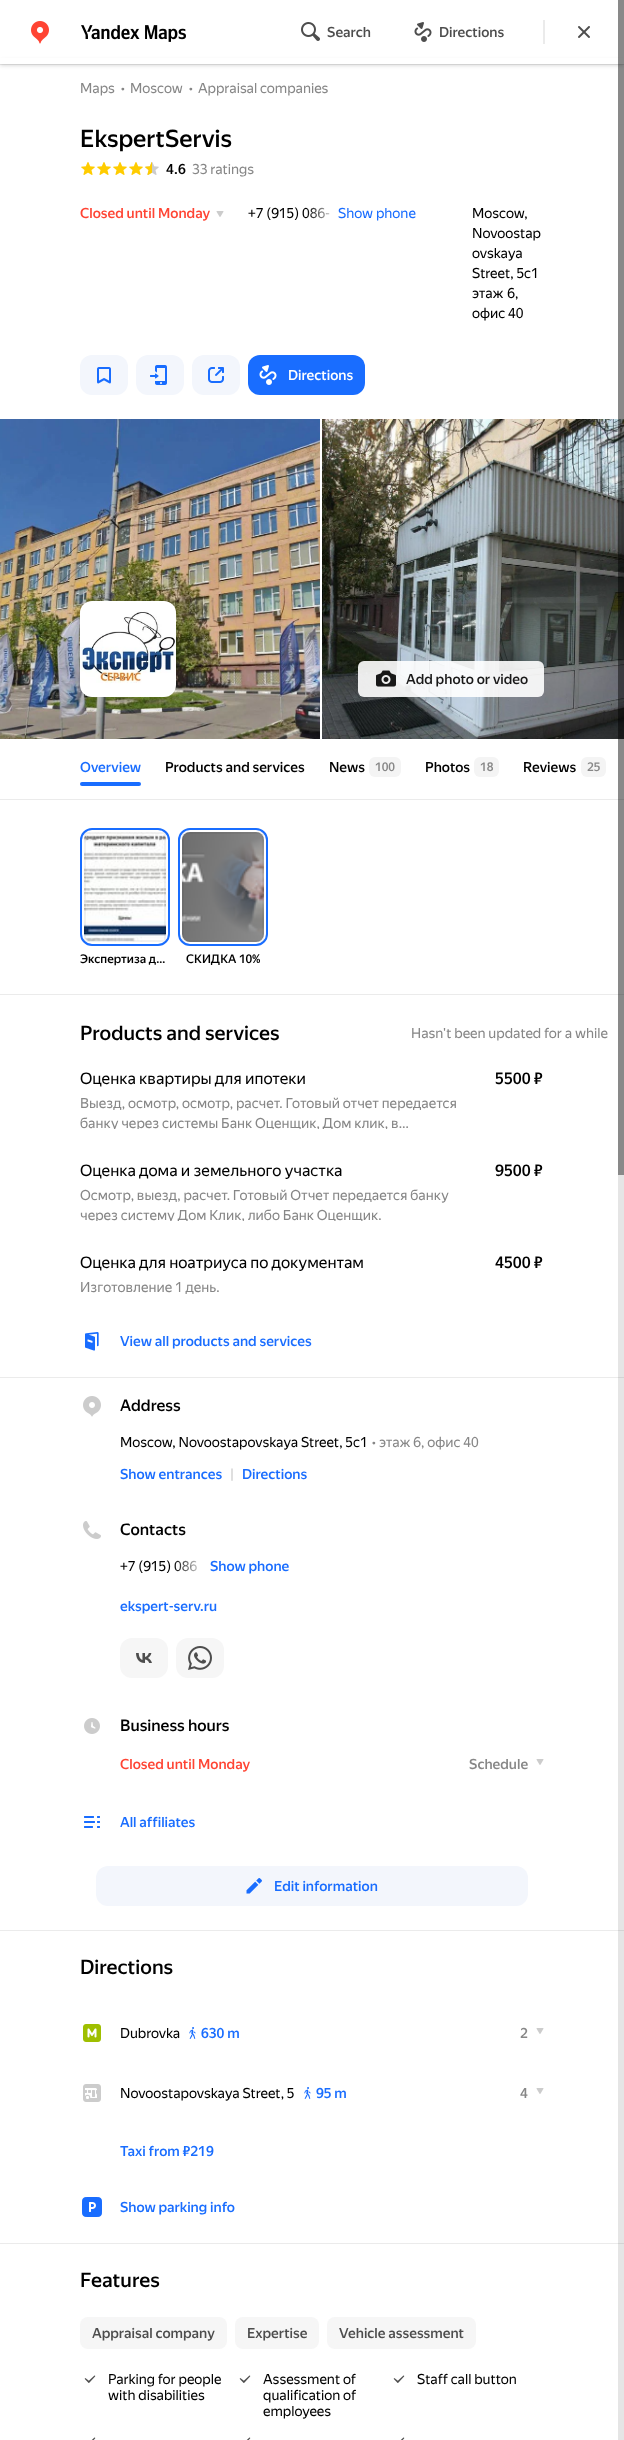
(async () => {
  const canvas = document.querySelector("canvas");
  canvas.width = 624;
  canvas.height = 2440;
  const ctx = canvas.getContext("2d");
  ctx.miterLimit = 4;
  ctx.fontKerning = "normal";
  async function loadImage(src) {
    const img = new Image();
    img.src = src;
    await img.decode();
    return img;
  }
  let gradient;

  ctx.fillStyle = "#ffffff";
  ctx.fillRect(0, 0, 624, 2440);
  ctx.fillStyle = "#ebebeb";
  ctx.fillRect(0, 64, 624, 1);
  ctx.fillStyle = "rgba(0, 0, 0, 0.2)";
  ctx.filter = "blur(2px)";
  ctx.beginPath();
  ctx.rect(0, 61, 624, 4);
  ctx.fill();
  ctx.filter = "none";
  ctx.fillStyle = "#ffffff";
  ctx.fillRect(0, 58, 624, 6);
  ctx.drawImage(await loadImage("img/1.png"), 31, 21, 18, 23);
  ctx.drawImage(await loadImage("img/2.png"), 81, 25, 105, 17);
  ctx.drawImage(await loadImage("img/3.png"), 301, 22, 19, 19);
  ctx.drawImage(await loadImage("img/4.png"), 414, 22, 18, 20);
  ctx.fillStyle = "#ebebeb";
  ctx.fillRect(543, 20, 2, 24);
  ctx.drawImage(await loadImage("img/5.png"), 578, 26, 12, 12);
  ctx.drawImage(await loadImage("img/6.png"), 81, 162, 14, 13);
  ctx.drawImage(await loadImage("img/6.png"), 97, 162, 14, 13);
  ctx.drawImage(await loadImage("img/6.png"), 113, 162, 14, 13);
  ctx.drawImage(await loadImage("img/6.png"), 129, 162, 14, 13);
  ctx.drawImage(await loadImage("img/7.png"), 145, 162, 14, 13);
  ctx.drawImage(await loadImage("img/8.png"), 216, 211, 8, 6);
  ctx.fillStyle = "#f3f6fc";
  ctx.beginPath();
  ctx.roundRect(80, 355, 48, 40, 12);
  ctx.fill();
  ctx.drawImage(await loadImage("img/9.png"), 97, 367, 14, 17);
  ctx.beginPath();
  ctx.roundRect(136, 355, 48, 40, 12);
  ctx.fill();
  ctx.drawImage(await loadImage("img/10.png"), 150, 365, 17, 20);
  ctx.beginPath();
  ctx.roundRect(192, 355, 48, 40, 12);
  ctx.fill();
  ctx.drawImage(await loadImage("img/11.png"), 208, 367, 16, 16);
  ctx.fillStyle = "#196dff";
  ctx.beginPath();
  ctx.roundRect(248, 355, 117, 40, 12);
  ctx.fill();
  ctx.drawImage(await loadImage("img/12.png"), 259, 365, 18, 20);
  ctx.drawImage(await loadImage("img/13.png"), 0, 419, 320, 320);
  ctx.drawImage(await loadImage("img/14.png"), 322, 419, 302, 320);
  ctx.drawImage(await loadImage("img/15.png"), 80, 601, 96, 96);
  ctx.fillStyle = "rgba(255, 255, 255, 0.9)";
  ctx.beginPath();
  ctx.roundRect(358, 661, 186, 36, 6);
  ctx.fill();
  ctx.drawImage(await loadImage("img/16.png"), 376, 670, 20, 17);
  ctx.fillStyle = "#f4f4f4";
  ctx.beginPath();
  ctx.roundRect(369, 757, 32, 20, 6);
  ctx.fill();
  ctx.beginPath();
  ctx.roundRect(474, 757, 25, 20, 6);
  ctx.fill();
  ctx.beginPath();
  ctx.roundRect(581, 757, 25, 20, 6);
  ctx.fill();
  ctx.fillStyle = "#196dff";
  ctx.beginPath();
  ctx.roundRect(80, 782, 61, 4, 2);
  ctx.fill();
  ctx.fillStyle = "#ebebeb";
  ctx.fillRect(0, 799, 624, 1);
  ctx.beginPath();
  ctx.roundRect(81, 829, 88, 116, 11);
  ctx.strokeStyle = "#196dff";
  ctx.lineWidth = 2;
  ctx.stroke();
  ctx.fillStyle = "#f6f6f6";
  ctx.beginPath();
  ctx.roundRect(84, 832, 82, 110, 8);
  ctx.fill();
  ctx.drawImage(await loadImage("img/17.png"), 84, 832, 82, 110);
  ctx.strokeStyle = "rgba(0, 0, 0, 0.05)";
  ctx.strokeRect(85, 833, 80, 108);
  ctx.beginPath();
  ctx.roundRect(179, 829, 88, 116, 11);
  ctx.strokeStyle = "#196dff";
  ctx.stroke();
  ctx.beginPath();
  ctx.roundRect(182, 832, 82, 110, 8);
  ctx.fill();
  ctx.drawImage(await loadImage("img/18.png"), 182, 832, 82, 110);
  ctx.strokeStyle = "rgba(0, 0, 0, 0.05)";
  ctx.strokeRect(183, 833, 80, 108);
  ctx.fillStyle = "#ebebeb";
  ctx.fillRect(0, 994, 624, 1);
  ctx.drawImage(await loadImage("img/19.png"), 85, 1332, 14, 19);
  ctx.fillRect(0, 1377, 624, 1);
  ctx.drawImage(await loadImage("img/20.png"), 83, 1396, 18, 21);
  ctx.drawImage(await loadImage("img/21.png"), 83, 1521, 18, 18);
  ctx.fillStyle = "#f6f6f6";
  ctx.beginPath();
  ctx.roundRect(120, 1638, 48, 40, 12);
  ctx.fill();
  ctx.drawImage(await loadImage("img/22.png"), 136, 1653, 16, 10);
  ctx.beginPath();
  ctx.roundRect(176, 1638, 48, 40, 12);
  ctx.fill();
  ctx.drawImage(await loadImage("img/23.png"), 188, 1646, 24, 24);
  ctx.drawImage(await loadImage("img/24.png"), 84, 1718, 16, 16);
  ctx.drawImage(await loadImage("img/8.png"), 536, 1759, 8, 6);
  ctx.drawImage(await loadImage("img/25.png"), 84, 1816, 16, 12);
  ctx.fillStyle = "#f3f6fc";
  ctx.beginPath();
  ctx.roundRect(96, 1866, 432, 40, 12);
  ctx.fill();
  ctx.drawImage(await loadImage("img/26.png"), 246, 1878, 16, 16);
  ctx.fillStyle = "#ebebeb";
  ctx.fillRect(0, 1930, 624, 1);
  ctx.drawImage(await loadImage("img/27.png"), 83, 2024, 18, 18);
  ctx.drawImage(await loadImage("img/28.png"), 189, 2027, 7, 12);
  ctx.drawImage(await loadImage("img/8.png"), 536, 2028, 8, 6);
  ctx.drawImage(await loadImage("img/29.png"), 83, 2084, 18, 18);
  ctx.drawImage(await loadImage("img/28.png"), 304, 2087, 7, 12);
  ctx.drawImage(await loadImage("img/8.png"), 536, 2088, 8, 6);
  ctx.drawImage(await loadImage("img/30.png"), 82, 2197, 20, 20);
  ctx.fillRect(0, 2243, 624, 1);
  ctx.fillStyle = "#f6f6f6";
  ctx.beginPath();
  ctx.roundRect(80, 2317, 147, 32, 8);
  ctx.fill();
  ctx.beginPath();
  ctx.roundRect(235, 2317, 84, 32, 8);
  ctx.fill();
  ctx.beginPath();
  ctx.roundRect(327, 2317, 149, 32, 8);
  ctx.fill();
  ctx.drawImage(await loadImage("img/31.png"), 84, 2375, 12, 8);
  ctx.drawImage(await loadImage("img/31.png"), 239, 2375, 12, 8);
  ctx.drawImage(await loadImage("img/31.png"), 393, 2375, 12, 8);
  ctx.drawImage(await loadImage("img/32.png"), 91, 2437, 5, 3);
  ctx.drawImage(await loadImage("img/32.png"), 246, 2437, 5, 3);
  ctx.drawImage(await loadImage("img/32.png"), 400, 2437, 5, 3);
  ctx.fillStyle = "rgba(0, 0, 0, 0.1)";
  ctx.fillRect(618, 0, 6, 2440);
  ctx.fillStyle = "rgba(0, 0, 0, 0.4)";
  ctx.fillRect(618, 0, 6, 1175);
  ctx.font = "500 14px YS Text";
  ctx.fillStyle = "#4d4d4d";
  ctx.fillText("Search", 327, 37);
  ctx.fillText("Directions", 439, 37);
  ctx.font = "14px YS Text";
  ctx.fillStyle = "#878787";
  for (const [text, x, y] of [
    ["Maps", 80, 93],
    ["•", 121, 93],
    ["Moscow", 130, 93],
    ["•", 189, 93],
    ["Appraisal companies", 198, 93],
  ]) {
    ctx.fillText(text, x, y);
  }
  ctx.font = "500 24px YS Text";
  ctx.fillStyle = "#000000";
  ctx.fillText("EkspertServis", 80, 147);
  ctx.font = "500 14px YS Text";
  ctx.fillText("4.6", 166, 174);
  ctx.font = "14px YS Text";
  ctx.fillStyle = "#878787";
  ctx.fillText("33 ratings", 192, 174);
  ctx.font = "500 14px YS Text";
  ctx.fillStyle = "#ff4433";
  ctx.fillText("Closed until Monday", 80, 218);
  ctx.font = "14px YS Text";
  ctx.fillStyle = "#000000";
  ctx.fillText("+7 (915) 086-", 248, 218);
  gradient = ctx.createLinearGradient(306, 213, 338, 213);
  gradient.addColorStop(0, "rgba(255, 255, 255, 0)");
  gradient.addColorStop(1, "#ffffff");
  ctx.fillStyle = gradient;
  ctx.fillRect(307, 207, 23, 12);
  ctx.fillStyle = "#196dff";
  ctx.fillText("Show phone", 338, 218);
  ctx.fillStyle = "#000000";
  for (const [text, x, y] of [
    ["Moscow,", 472, 218],
    ["Novoostap", 472, 238],
    ["ovskaya", 472, 258],
    ["Street, 5с1", 472, 278],
  ]) {
    ctx.fillText(text, x, y);
  }
  ctx.wordSpacing = "1px";
  ctx.fillText("этаж 6,", 472, 298);
  ctx.wordSpacing = "0px";
  ctx.fillText("офис 40", 472, 318);
  ctx.font = "500 14px YS Text";
  ctx.fillStyle = "#ffffff";
  ctx.fillText("Directions", 288, 380);
  ctx.fillStyle = "#191919";
  ctx.fillText("Add photo or video", 406, 684);
  ctx.fillStyle = "#196dff";
  ctx.fillText("Overview", 80, 772);
  ctx.fillStyle = "#000000";
  ctx.fillText("Products and services", 165, 772);
  ctx.fillText("News", 329, 772);
  ctx.font = "500 12px YS Text";
  ctx.fillStyle = "#878787";
  ctx.fillText("100", 375, 771);
  ctx.font = "500 14px YS Text";
  ctx.fillStyle = "#000000";
  ctx.fillText("Photos", 425, 772);
  ctx.font = "500 12px YS Text";
  ctx.fillStyle = "#878787";
  ctx.fillText("18", 480, 771);
  ctx.font = "500 14px YS Text";
  ctx.fillStyle = "#000000";
  ctx.fillText("Reviews", 523, 772);
  ctx.font = "500 12px YS Text";
  ctx.fillStyle = "#878787";
  ctx.fillText("25", 587, 771);
  ctx.fillStyle = "#000000";
  ctx.fillText("Экспертиза д…", 80, 963);
  ctx.fillText("СКИДКА 10%", 186, 963);
  ctx.font = "500 20px YS Text";
  ctx.fillText("Products and services", 80, 1040);
  ctx.font = "14px YS Text";
  ctx.fillStyle = "#878787";
  ctx.fillText("Hasn't been updated for a while", 411, 1038);
  ctx.font = "16px YS Text";
  ctx.fillStyle = "#000000";
  ctx.fillText("Оценка квартиры для ипотеки", 80, 1084);
  ctx.font = "14px YS Text";
  ctx.fillStyle = "#878787";
  ctx.fillText("Выезд, осмотр, осмотр, расчет. Готовый отчет передается", 80, 1108);
  ctx.save();
  ctx.beginPath();
  ctx.rect(80, 1093, 399, 36);
  ctx.clip();
  ctx.fillText("банку через системы Банк Оценщик, Дом клик, в…", 80, 1128);
  ctx.restore();
  ctx.font = "500 16px YS Text";
  ctx.fillStyle = "#000000";
  ctx.fillText("5500 ₽", 495, 1084);
  ctx.font = "16px YS Text";
  ctx.fillText("Оценка дома и земельного участка", 80, 1176);
  ctx.font = "14px YS Text";
  ctx.fillStyle = "#878787";
  ctx.fillText("Осмотр, выезд, расчет. Готовый Отчет передается банку", 80, 1200);
  ctx.save();
  ctx.beginPath();
  ctx.rect(80, 1185, 399, 36);
  ctx.clip();
  ctx.fillText("через систему Дом Клик, либо Банк Оценщик.", 80, 1220);
  ctx.restore();
  ctx.font = "500 16px YS Text";
  ctx.fillStyle = "#000000";
  ctx.fillText("9500 ₽", 495, 1176);
  ctx.font = "16px YS Text";
  ctx.fillText("Оценка для ноатриуса по документам", 80, 1268);
  ctx.font = "14px YS Text";
  ctx.fillStyle = "#878787";
  ctx.fillText("Изготовление 1 день.", 80, 1292);
  ctx.font = "500 16px YS Text";
  ctx.fillStyle = "#000000";
  ctx.fillText("4500 ₽", 495, 1268);
  ctx.font = "500 14px YS Text";
  ctx.fillStyle = "#196dff";
  ctx.fillText("View all products and services", 120, 1346);
  ctx.font = "500 16px YS Text";
  ctx.fillStyle = "#000000";
  ctx.fillText("Address", 120, 1411);
  ctx.font = "14px YS Text";
  ctx.fillText("Moscow, Novoostapovskaya Street, 5с1", 120, 1447);
  ctx.fillStyle = "#878787";
  ctx.fillText("•", 372, 1447);
  ctx.fillText("этаж 6, офис 40", 379, 1447);
  ctx.font = "500 14px YS Text";
  ctx.fillStyle = "#196dff";
  ctx.fillText("Show entrances", 120, 1479);
  ctx.font = "14px YS Text";
  ctx.fillStyle = "#cccccc";
  ctx.fillText("|", 230, 1479);
  ctx.font = "500 14px YS Text";
  ctx.fillStyle = "#196dff";
  ctx.fillText("Directions", 242, 1479);
  ctx.font = "500 16px YS Text";
  ctx.fillStyle = "#000000";
  ctx.fillText("Contacts", 120, 1535);
  ctx.font = "14px YS Text";
  ctx.fillText("+7 (915) 086", 120, 1571);
  gradient = ctx.createLinearGradient(173, 1566, 205, 1566);
  gradient.addColorStop(0, "rgba(255, 255, 255, 0)");
  gradient.addColorStop(1, "#ffffff");
  ctx.fillStyle = gradient;
  ctx.fillRect(174, 1560, 23, 12);
  ctx.font = "500 14px YS Text";
  ctx.fillStyle = "#196dff";
  ctx.fillText("Show phone", 210, 1571);
  ctx.fillText("ekspert-serv.ru", 120, 1611);
  ctx.font = "500 16px YS Text";
  ctx.fillStyle = "#000000";
  ctx.fillText("Business hours", 120, 1731);
  ctx.font = "500 14px YS Text";
  ctx.fillStyle = "#ff4433";
  ctx.fillText("Closed until Monday", 120, 1769);
  ctx.fillStyle = "#878787";
  ctx.fillText("Schedule", 469, 1769);
  ctx.fillStyle = "#196dff";
  ctx.fillText("All affiliates", 120, 1827);
  ctx.fillText("Edit information", 274, 1891);
  ctx.font = "500 20px YS Text";
  ctx.fillStyle = "#000000";
  ctx.fillText("Directions", 80, 1974);
  ctx.font = "14px YS Text";
  ctx.fillText("Dubrovka", 120, 2038);
  ctx.font = "500 14px YS Text";
  ctx.fillStyle = "#196dff";
  ctx.fillText("630 m", 201, 2038);
  ctx.fillStyle = "#878787";
  ctx.fillText("2", 520, 2038);
  ctx.font = "14px YS Text";
  ctx.fillStyle = "#000000";
  ctx.fillText("Novoostapovskaya Street, 5", 120, 2098);
  ctx.font = "500 14px YS Text";
  ctx.fillStyle = "#196dff";
  ctx.fillText("95 m", 316, 2098);
  ctx.fillStyle = "#878787";
  ctx.fillText("4", 520, 2098);
  ctx.fillStyle = "#196dff";
  ctx.fillText("Taxi from ₽219", 120, 2156);
  ctx.fillText("Show parking info", 120, 2212);
  ctx.font = "500 20px YS Text";
  ctx.fillStyle = "#000000";
  ctx.fillText("Features", 80, 2287);
  ctx.font = "500 14px YS Text";
  ctx.fillStyle = "#4d4d4d";
  for (const [text, x, y] of [
    ["Appraisal company", 92, 2338],
    ["Expertise", 247, 2338],
    ["Vehicle assessment", 339, 2338],
  ]) {
    ctx.fillText(text, x, y);
  }
  ctx.font = "14px YS Text";
  ctx.fillStyle = "#000000";
  for (const [text, x, y] of [
    ["Parking for people", 108, 2384],
    ["with disabilities", 108, 2400],
    ["Assessment of", 263, 2384],
    ["qualification of", 263, 2400],
    ["employees", 263, 2416],
    ["Staff call button", 417, 2384],
  ]) {
    ctx.fillText(text, x, y);
  }
})();
